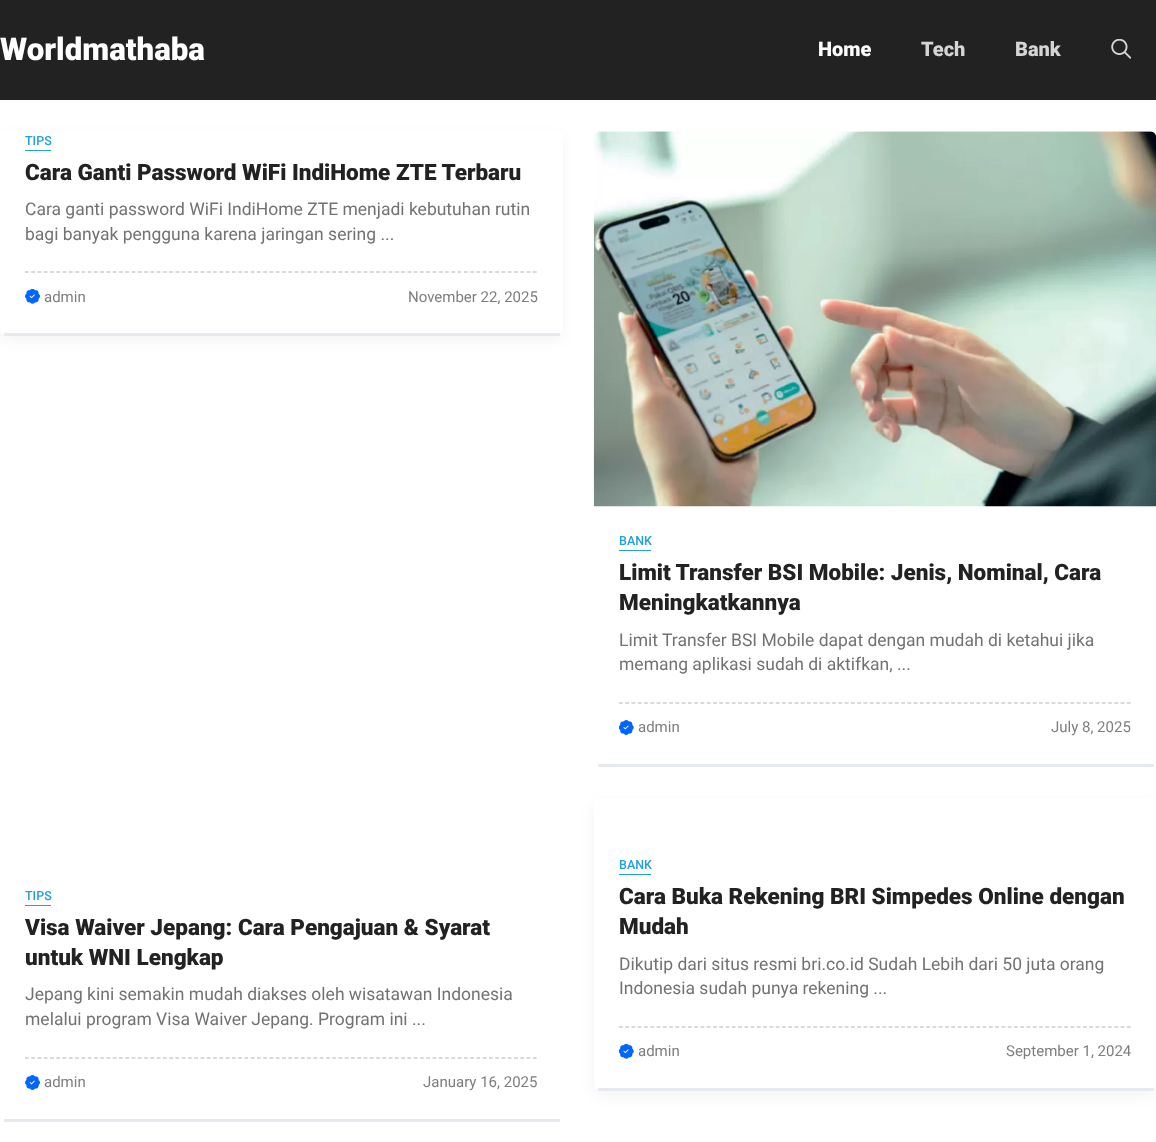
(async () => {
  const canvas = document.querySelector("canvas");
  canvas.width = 1156;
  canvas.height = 1142;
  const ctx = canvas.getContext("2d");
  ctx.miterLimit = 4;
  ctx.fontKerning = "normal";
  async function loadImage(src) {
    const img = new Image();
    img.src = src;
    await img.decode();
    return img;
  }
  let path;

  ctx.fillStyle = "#ffffff";
  ctx.fillRect(0, 0, 1156, 1142);
  ctx.fillStyle = "#222222";
  ctx.fillRect(0, 0, 1156, 100);
  ctx.drawImage(await loadImage("img/1.png"), 1111, 39, 20, 20);
  ctx.save();
  path = new Path2D("M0 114H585V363H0ZM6 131H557C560.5 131 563 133.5 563 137V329C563 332.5 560.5 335 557 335H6C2.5 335 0 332.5 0 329V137C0 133.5 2.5 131 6 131Z");
  ctx.clip(path, "evenodd");
  ctx.fillStyle = "rgba(11, 15, 25, 0.06)";
  ctx.filter = "blur(7.5px)";
  ctx.beginPath();
  ctx.roundRect(1, 138, 560, 201, 5);
  ctx.fill();
  ctx.filter = "none";
  ctx.restore();
  ctx.fillStyle = "#e6e9ed";
  ctx.fillRect(4, 333, 556, 3);
  ctx.fillStyle = "#25a0db";
  ctx.fillRect(25, 150, 26, 1);
  path = new Path2D("M25 272H537.5");
  ctx.strokeStyle = "#b2b2be";
  ctx.lineWidth = 1.2;
  ctx.setLineDash([3.75, 2.52]);
  ctx.stroke(path);
  ctx.drawImage(await loadImage("img/2.png"), 25, 289, 15, 15);
  ctx.fillStyle = "#e6e9ed";
  ctx.fillRect(598, 764, 556, 3);
  ctx.drawImage(await loadImage("img/3.png"), 593, 131, 563, 376);
  ctx.fillStyle = "#25a0db";
  ctx.fillRect(619, 550, 32, 1);
  path = new Path2D("M619 703H1131");
  ctx.stroke(path);
  ctx.drawImage(await loadImage("img/4.png"), 619, 720, 15, 15);
  ctx.fillStyle = "#e6e9ed";
  ctx.fillRect(4, 1119, 556, 3);
  ctx.fillStyle = "#25a0db";
  ctx.fillRect(25, 905, 26, 1);
  path = new Path2D("M25 1058H537.5");
  ctx.stroke(path);
  ctx.drawImage(await loadImage("img/5.png"), 25, 1075, 15, 15);
  ctx.save();
  path = new Path2D("M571 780H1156V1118H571ZM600 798H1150C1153.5 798 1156 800.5 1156 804V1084C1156 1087.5 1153.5 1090 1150 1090H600C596.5 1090 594 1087.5 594 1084V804C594 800.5 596.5 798 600 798Z");
  ctx.clip(path, "evenodd");
  ctx.fillStyle = "rgba(11, 15, 25, 0.06)";
  ctx.filter = "blur(7.5px)";
  ctx.beginPath();
  ctx.roundRect(595, 804, 560, 290, 5);
  ctx.fill();
  ctx.filter = "none";
  ctx.restore();
  ctx.fillStyle = "#e6e9ed";
  ctx.fillRect(598, 1088, 556, 3);
  ctx.fillStyle = "#25a0db";
  ctx.fillRect(619, 874, 32, 1);
  path = new Path2D("M619 1027H1131");
  ctx.stroke(path);
  ctx.drawImage(await loadImage("img/6.png"), 619, 1044, 15, 15);
  ctx.font = "900 31.25px Roboto";
  ctx.fillStyle = "#ffffff";
  ctx.fillText("Worldmathaba", 0, 60);
  ctx.font = "900 20px Roboto";
  ctx.fillText("Home", 818, 56);
  ctx.fillStyle = "#d5d5d5";
  ctx.fillText("Tech", 921, 56);
  ctx.fillText("Bank", 1015, 56);
  ctx.font = "500 12.5px Roboto";
  ctx.fillStyle = "#25a0db";
  ctx.fillText("TIPS", 25, 145);
  ctx.font = "900 22.5px Roboto";
  ctx.fillStyle = "#222222";
  ctx.fillText("Cara Ganti Password WiFi IndiHome ZTE Terbaru", 25, 180);
  ctx.font = "17.5px Roboto";
  ctx.fillStyle = "#727272";
  ctx.fillText("Cara ganti password WiFi IndiHome ZTE menjadi kebutuhan rutin", 25, 215);
  ctx.fillText("bagi banyak pengguna karena jaringan sering ...", 25, 240);
  ctx.font = "15px Roboto";
  ctx.fillStyle = "#7e7e7e";
  ctx.fillText("admin", 44, 302);
  ctx.fillText("November 22, 2025", 408, 302);
  ctx.font = "500 12.5px Roboto";
  ctx.fillStyle = "#25a0db";
  ctx.fillText("BANK", 619, 545);
  ctx.font = "900 22.5px Roboto";
  ctx.fillStyle = "#222222";
  ctx.fillText("Limit Transfer BSI Mobile: Jenis, Nominal, Cara", 619, 580);
  ctx.fillText("Meningkatkannya", 619, 610);
  ctx.font = "17.5px Roboto";
  ctx.fillStyle = "#727272";
  ctx.fillText("Limit Transfer BSI Mobile dapat dengan mudah di ketahui jika", 619, 646);
  ctx.fillText("memang aplikasi sudah di aktifkan, ...", 619, 670);
  ctx.font = "15px Roboto";
  ctx.fillStyle = "#7e7e7e";
  ctx.fillText("admin", 638, 732);
  ctx.fillText("July 8, 2025", 1051, 732);
  ctx.font = "500 12.5px Roboto";
  ctx.fillStyle = "#25a0db";
  ctx.fillText("TIPS", 25, 900);
  ctx.font = "900 22.5px Roboto";
  ctx.fillStyle = "#222222";
  ctx.fillText("Visa Waiver Jepang: Cara Pengajuan & Syarat", 25, 935);
  ctx.fillText("untuk WNI Lengkap", 25, 965);
  ctx.font = "17.5px Roboto";
  ctx.fillStyle = "#727272";
  ctx.fillText("Jepang kini semakin mudah diakses oleh wisatawan Indonesia", 25, 1000);
  ctx.fillText("melalui program Visa Waiver Jepang. Program ini ...", 25, 1025);
  ctx.font = "15px Roboto";
  ctx.fillStyle = "#7e7e7e";
  ctx.fillText("admin", 44, 1087);
  ctx.fillText("January 16, 2025", 423, 1087);
  ctx.font = "500 12.5px Roboto";
  ctx.fillStyle = "#25a0db";
  ctx.fillText("BANK", 619, 869);
  ctx.font = "900 22.5px Roboto";
  ctx.fillStyle = "#222222";
  ctx.fillText("Cara Buka Rekening BRI Simpedes Online dengan", 619, 904);
  ctx.fillText("Mudah", 619, 934);
  ctx.font = "17.5px Roboto";
  ctx.fillStyle = "#727272";
  ctx.fillText("Dikutip dari situs resmi bri.co.id Sudah Lebih dari 50 juta orang", 619, 970);
  ctx.fillText("Indonesia sudah punya rekening ...", 619, 994);
  ctx.font = "15px Roboto";
  ctx.fillStyle = "#7e7e7e";
  ctx.fillText("admin", 638, 1056);
  ctx.fillText("September 1, 2024", 1006, 1056);
})();
